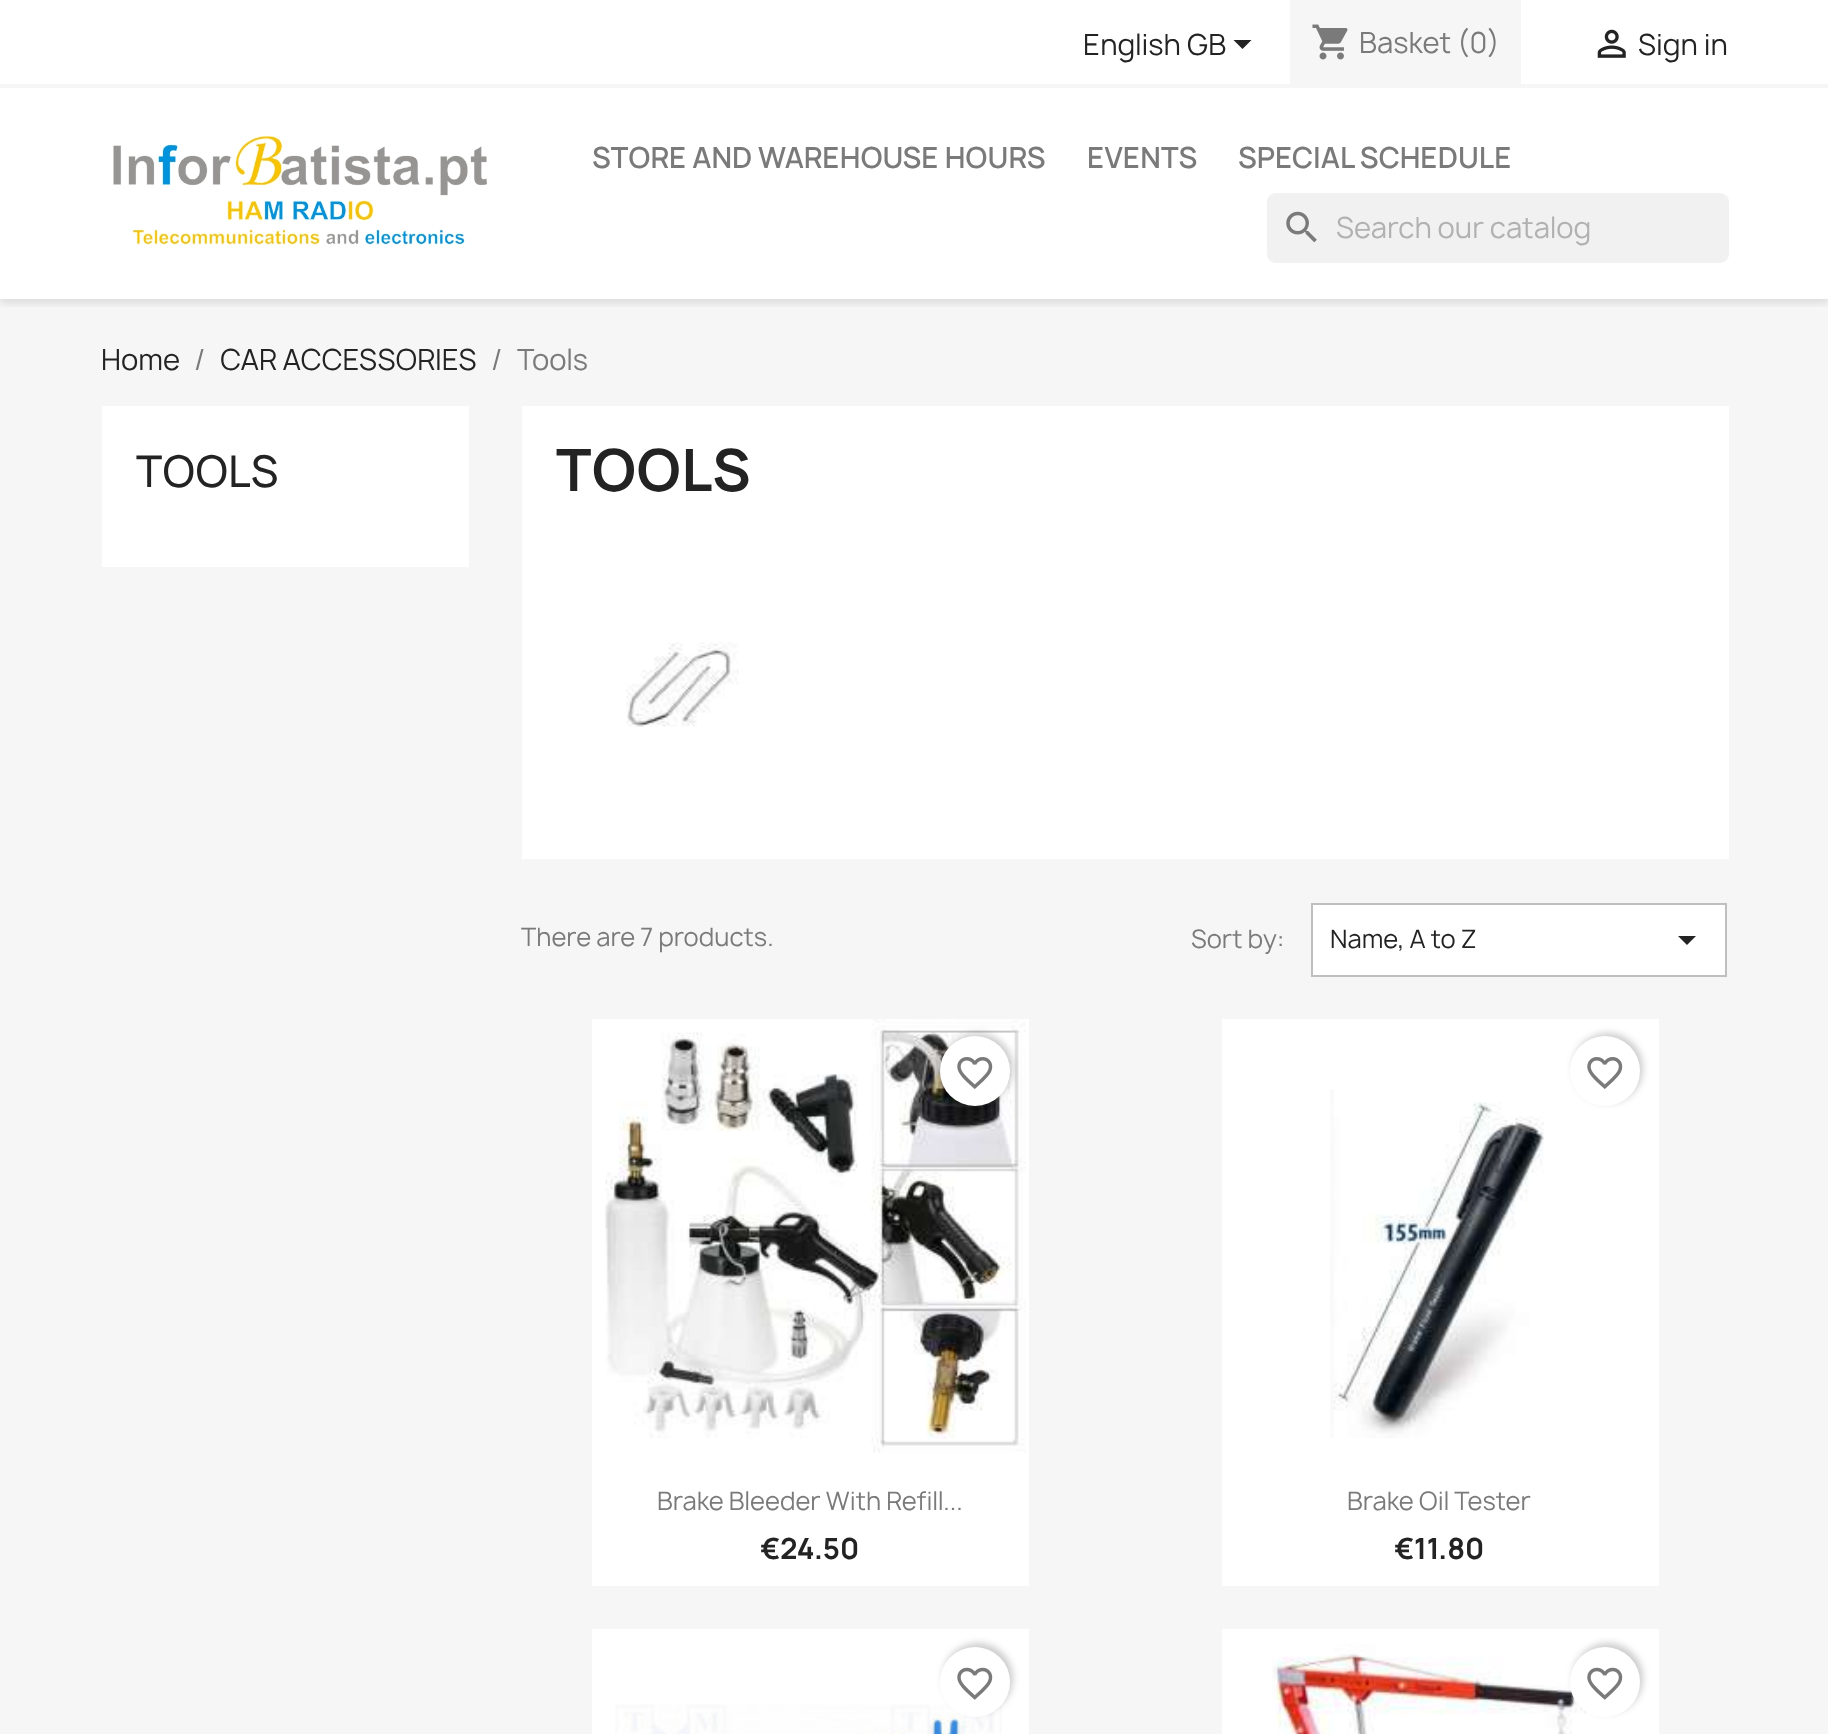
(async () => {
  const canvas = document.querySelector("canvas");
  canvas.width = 1828;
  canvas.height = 1734;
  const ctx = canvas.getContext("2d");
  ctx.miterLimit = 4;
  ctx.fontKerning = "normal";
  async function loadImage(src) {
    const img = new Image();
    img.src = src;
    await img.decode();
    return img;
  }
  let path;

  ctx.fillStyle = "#ffffff";
  ctx.fillRect(0, 0, 1828, 1734);
  ctx.fillStyle = "#f6f6f6";
  ctx.fillRect(0, 299, 1828, 1435);
  ctx.save();
  ctx.beginPath();
  ctx.rect(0, 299, 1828, 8);
  ctx.clip();
  ctx.fillStyle = "rgba(0, 0, 0, 0.11)";
  ctx.filter = "blur(4.5px)";
  ctx.beginPath();
  ctx.rect(0, 4, 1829, 299);
  ctx.fill();
  ctx.filter = "none";
  ctx.restore();
  ctx.fillRect(0, 84, 1828, 4);
  ctx.fillStyle = "#232323";
  path = new Path2D("M1233.5 40H1251.5L1242.5 49Z");
  ctx.fill(path);
  ctx.fillStyle = "#f6f6f6";
  ctx.fillRect(1290, 0, 231, 84);
  ctx.drawImage(await loadImage("img/1.png"), 1312, 24, 36, 36);
  ctx.drawImage(await loadImage("img/2.png"), 1597, 29, 29, 29);
  ctx.drawImage(await loadImage("img/3.png"), 113, 135, 375, 110);
  ctx.fillStyle = "#f1f1f1";
  ctx.beginPath();
  ctx.roundRect(1267, 193, 462, 70, 9);
  ctx.fill();
  ctx.drawImage(await loadImage("img/4.png"), 1286, 211, 31, 32);
  ctx.fillStyle = "#ffffff";
  ctx.fillRect(102, 406, 367, 161);
  ctx.fillRect(522, 406, 1207, 453);
  ctx.drawImage(await loadImage("img/5.png"), 626, 642, 113, 85);
  ctx.beginPath();
  ctx.rect(1312, 904, 414, 72);
  ctx.fill();
  ctx.strokeStyle = "#bfbfbf";
  ctx.lineWidth = 2;
  ctx.stroke();
  ctx.fillStyle = "#232323";
  path = new Path2D("M1678 936H1696L1687 945Z");
  ctx.fill(path);
  ctx.fillStyle = "#ffffff";
  ctx.fillRect(592, 1019, 437, 567);
  ctx.drawImage(await loadImage("img/6.png"), 605, 1019, 421, 434);
  ctx.fillStyle = "rgba(0, 0, 0, 0.2)";
  ctx.filter = "blur(3.5px)";
  ctx.beginPath();
  ctx.roundRect(943, 1033, 70, 70, 35);
  ctx.fill();
  ctx.filter = "none";
  ctx.fillStyle = "#ffffff";
  ctx.beginPath();
  ctx.arc(975, 1071, 35, 0, Math.PI * 2);
  ctx.fill();
  ctx.drawImage(await loadImage("img/7.png"), 957, 1057, 36, 32);
  ctx.fillRect(1222, 1019, 437, 567);
  ctx.fillStyle = "rgba(0, 0, 0, 0.2)";
  ctx.filter = "blur(3.5px)";
  ctx.beginPath();
  ctx.roundRect(1573, 1033, 70, 70, 35);
  ctx.fill();
  ctx.filter = "none";
  ctx.fillStyle = "#ffffff";
  ctx.beginPath();
  ctx.arc(1605, 1071, 35, 0, Math.PI * 2);
  ctx.fill();
  ctx.drawImage(await loadImage("img/7.png"), 1587, 1057, 36, 32);
  ctx.drawImage(await loadImage("img/8.png"), 1330, 1089, 214, 349);
  ctx.fillRect(592, 1629, 437, 105);
  ctx.drawImage(await loadImage("img/10.png"), 615, 1704, 387, 30);
  ctx.fillStyle = "rgba(0, 0, 0, 0.2)";
  ctx.filter = "blur(3.5px)";
  ctx.beginPath();
  ctx.roundRect(943, 1643, 70, 70, 35);
  ctx.fill();
  ctx.filter = "none";
  ctx.fillStyle = "#ffffff";
  ctx.beginPath();
  ctx.arc(975, 1682, 35, 0, Math.PI * 2);
  ctx.fill();
  ctx.drawImage(await loadImage("img/9.png"), 957, 1667, 36, 33);
  ctx.fillRect(1222, 1629, 437, 105);
  ctx.drawImage(await loadImage("img/11.png"), 1272, 1644, 314, 90);
  ctx.fillStyle = "rgba(0, 0, 0, 0.2)";
  ctx.filter = "blur(3.5px)";
  ctx.beginPath();
  ctx.roundRect(1573, 1643, 70, 70, 35);
  ctx.fill();
  ctx.filter = "none";
  ctx.fillStyle = "#ffffff";
  ctx.beginPath();
  ctx.arc(1605, 1682, 35, 0, Math.PI * 2);
  ctx.fill();
  ctx.drawImage(await loadImage("img/9.png"), 1587, 1667, 36, 33);
  ctx.font = "28px Manrope";
  ctx.fillStyle = "#232323";
  ctx.fillText("English GB", 1083, 55);
  ctx.fillStyle = "#7a7a7a";
  ctx.fillText("Basket (0)", 1359, 53);
  ctx.fillStyle = "#232323";
  ctx.fillText("Sign in", 1638, 55);
  ctx.font = "600 28px Manrope";
  ctx.fillStyle = "#7a7a7a";
  for (const [text, x, y] of [
    ["STORE AND WAREHOUSE HOURS", 592, 168],
    ["EVENTS", 1087, 168],
    ["SPECIAL SCHEDULE", 1238, 168],
  ]) {
    ctx.fillText(text, x, y);
  }
  ctx.font = "28px Manrope";
  ctx.fillStyle = "#b1b1b1";
  ctx.fillText("Search our catalog", 1336, 238);
  ctx.fillStyle = "#232323";
  ctx.fillText("Home", 101, 370);
  ctx.fillStyle = "#7a7a7a";
  ctx.fillText("/", 194, 370);
  ctx.fillStyle = "#232323";
  ctx.fillText("CAR ACCESSORIES", 220, 370);
  ctx.fillStyle = "#7a7a7a";
  ctx.fillText("/", 491, 370);
  ctx.fillText("Tools", 517, 370);
  ctx.font = "500 42px Manrope";
  ctx.fillStyle = "#232323";
  ctx.fillText("TOOLS", 136, 487);
  ctx.font = "bold 56px Manrope";
  ctx.fillText("TOOLS", 556, 491);
  ctx.font = "24.5px Manrope";
  ctx.fillStyle = "#7a7a7a";
  ctx.fillText("There are 7 products.", 521, 946);
  ctx.fillText("Sort by:", 1191, 948);
  ctx.fillStyle = "#232323";
  ctx.fillText("Name, A to Z", 1330, 948);
  ctx.fillStyle = "#7a7a7a";
  ctx.fillText("Brake Bleeder With Refill...", 657, 1510);
  ctx.font = "bold 28px Manrope";
  ctx.fillStyle = "#232323";
  ctx.fillText("€24.50", 760, 1559);
  ctx.font = "24.5px Manrope";
  ctx.fillStyle = "#7a7a7a";
  ctx.fillText("Brake Oil Tester", 1347, 1510);
  ctx.font = "bold 28px Manrope";
  ctx.fillStyle = "#232323";
  ctx.fillText("€11.80", 1394, 1559);
})();
